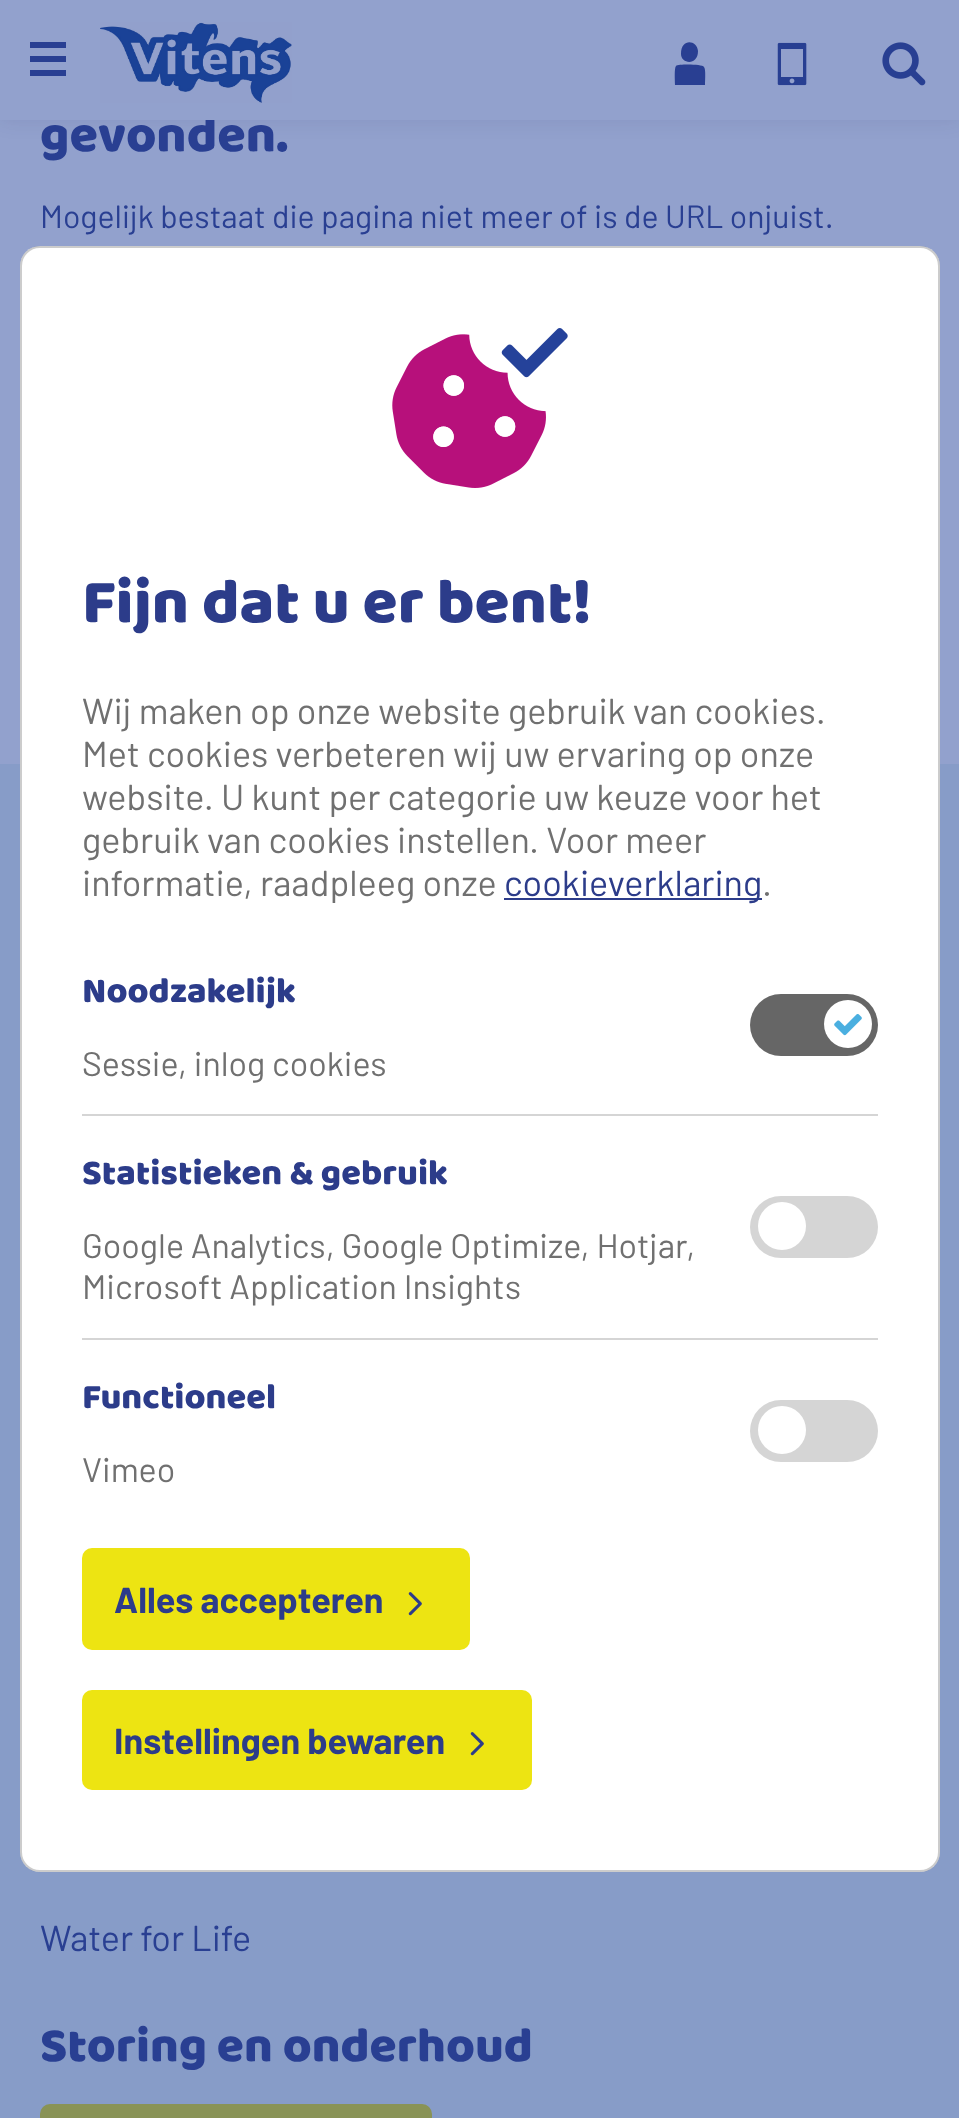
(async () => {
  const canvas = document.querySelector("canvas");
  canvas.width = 959;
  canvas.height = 2118;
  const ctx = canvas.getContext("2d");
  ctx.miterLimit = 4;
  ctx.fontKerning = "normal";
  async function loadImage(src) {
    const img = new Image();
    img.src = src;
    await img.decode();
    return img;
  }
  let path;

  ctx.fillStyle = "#92a1cd";
  ctx.fillRect(0, 0, 959, 2118);
  ctx.fillStyle = "rgba(19, 33, 77, 0.1)";
  ctx.filter = "blur(10px)";
  ctx.beginPath();
  ctx.rect(0, 0, 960, 120);
  ctx.fill();
  ctx.filter = "none";
  ctx.fillStyle = "#879cc8";
  ctx.fillRect(0, 764, 959, 1354);
  ctx.fillStyle = "#ffffff";
  ctx.beginPath();
  ctx.roundRect(20, 246, 920, 1626, 20);
  ctx.fill();
  ctx.beginPath();
  ctx.roundRect(21, 247, 918, 1624, 19);
  ctx.strokeStyle = "rgba(0, 0, 0, 0.2)";
  ctx.lineWidth = 2;
  ctx.stroke();
  ctx.drawImage(await loadImage("img/4.png"), 392, 328, 176, 160);
  ctx.fillStyle = "#2c3c8a";
  ctx.fillRect(504, 898, 258, 2);
  ctx.fillStyle = "#d5d5d5";
  ctx.fillRect(82, 1114, 796, 2);
  ctx.fillStyle = "#666666";
  ctx.beginPath();
  ctx.roundRect(750, 994, 128, 62, 31);
  ctx.fill();
  ctx.fillStyle = "#ffffff";
  ctx.beginPath();
  ctx.arc(848, 1024, 24, 0, Math.PI * 2);
  ctx.fill();
  ctx.drawImage(await loadImage("img/5.png"), 834, 1014, 28, 22);
  ctx.fillStyle = "#d5d5d5";
  ctx.fillRect(82, 1338, 796, 2);
  ctx.beginPath();
  ctx.roundRect(750, 1196, 128, 62, 31);
  ctx.fill();
  ctx.fillStyle = "#ffffff";
  ctx.beginPath();
  ctx.arc(782, 1226, 24, 0, Math.PI * 2);
  ctx.fill();
  ctx.fillStyle = "#d5d5d5";
  ctx.beginPath();
  ctx.roundRect(750, 1400, 128, 62, 31);
  ctx.fill();
  ctx.fillStyle = "#ffffff";
  ctx.beginPath();
  ctx.arc(782, 1430, 24, 0, Math.PI * 2);
  ctx.fill();
  ctx.fillStyle = "#ede412";
  ctx.beginPath();
  ctx.roundRect(82, 1548, 388, 102, 10);
  ctx.fill();
  ctx.drawImage(await loadImage("img/6.png"), 408, 1592, 14, 24);
  ctx.beginPath();
  ctx.roundRect(82, 1690, 450, 100, 10);
  ctx.fill();
  ctx.drawImage(await loadImage("img/6.png"), 470, 1732, 14, 24);
  ctx.fillStyle = "#899356";
  ctx.beginPath();
  ctx.roundRect(40, 2104, 392, 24, 10);
  ctx.fill();
  ctx.font = "52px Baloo";
  ctx.fillStyle = "#293f92";
  ctx.fillText("gevonden.", 40, 151);
  for (const [x, y, w, h, color] of [
    [0, 0, 959, 120, "#92a1cd"],
    [30, 70, 36, 6, "#293f92"],
    [30, 56, 36, 6, "#293f92"],
    [30, 42, 36, 6, "#293f92"],
  ]) {
    ctx.fillStyle = color;
    ctx.fillRect(x, y, w, h);
  }
  ctx.drawImage(await loadImage("img/3.png"), 882, 42, 44, 44);
  ctx.drawImage(await loadImage("img/2.png"), 777, 42, 30, 44);
  path = new Path2D("M705 85C705 81 706 69 704 67C702 64 678 64 676 66C674 68 675 82 675 85ZM698 51C697 40 681 38 681 54C681 64 698 66 698 51");
  ctx.fill(path);
  ctx.drawImage(await loadImage("img/1.png"), 100, 22, 192, 81);
  ctx.font = "32px Barlow";
  ctx.fillText("Mogelijk bestaat die pagina niet meer of is de URL onjuist.", 40, 228);
  ctx.font = "64px Baloo";
  ctx.fillStyle = "#2c3c8a";
  ctx.fillText("Fijn dat u er bent!", 82, 622);
  ctx.font = "36px Barlow";
  ctx.fillStyle = "#707070";
  for (const [text, x, y] of [
    ["Wij maken op onze website gebruik van cookies.", 82, 724],
    ["Met cookies verbeteren wij uw ervaring op onze", 82, 767],
    ["website. U kunt per categorie uw keuze voor het", 82, 810],
    ["gebruik van cookies instellen. Voor meer", 82, 853],
    ["informatie, raadpleeg onze", 82, 896],
  ]) {
    ctx.fillText(text, x, y);
  }
  ctx.fillStyle = "#2c3c8a";
  ctx.fillText("cookieverklaring", 504, 896);
  ctx.fillStyle = "#707070";
  ctx.fillText(".", 762, 896);
  ctx.font = "36px Baloo";
  ctx.fillStyle = "#2c3c8a";
  ctx.fillText("Noodzakelijk", 82, 1002);
  ctx.font = "34px Barlow";
  ctx.fillStyle = "#707070";
  ctx.fillText("Sessie, inlog cookies", 82, 1076);
  ctx.font = "36px Baloo";
  ctx.fillStyle = "#2c3c8a";
  ctx.fillText("Statistieken & gebruik", 82, 1184);
  ctx.font = "34px Barlow";
  ctx.fillStyle = "#707070";
  ctx.fillText("Google Analytics, Google Optimize, Hotjar,", 82, 1258);
  ctx.fillText("Microsoft Application Insights", 82, 1299);
  ctx.font = "36px Baloo";
  ctx.fillStyle = "#2c3c8a";
  ctx.fillText("Functioneel", 82, 1408);
  ctx.font = "34px Barlow";
  ctx.fillStyle = "#707070";
  ctx.fillText("Vimeo", 82, 1482);
  ctx.font = "bold 36px Barlow";
  ctx.fillStyle = "#2c3c8a";
  ctx.fillText("Alles accepteren", 114, 1613);
  ctx.fillText("Instellingen bewaren", 114, 1754);
  ctx.font = "36px Barlow";
  ctx.fillStyle = "#293f92";
  ctx.fillText("Water for Life", 40, 1951);
  ctx.font = "49.5px Baloo";
  ctx.fillText("Storing en onderhoud", 40, 2061);
})();
